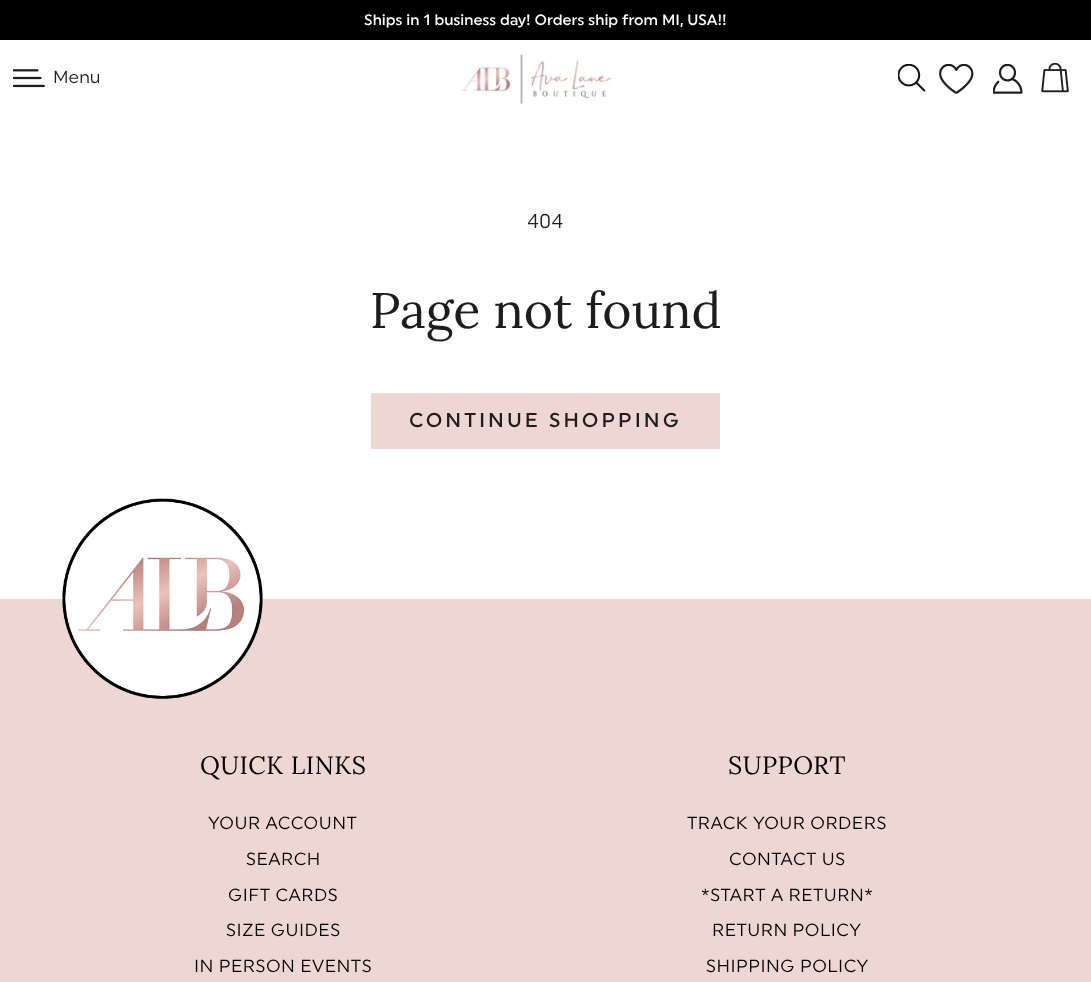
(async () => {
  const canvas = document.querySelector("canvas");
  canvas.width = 1091;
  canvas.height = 982;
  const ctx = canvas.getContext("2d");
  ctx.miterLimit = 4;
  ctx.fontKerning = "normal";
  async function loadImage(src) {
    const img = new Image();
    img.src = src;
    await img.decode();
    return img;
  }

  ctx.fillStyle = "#ffffff";
  ctx.fillRect(0, 0, 1091, 982);
  ctx.fillStyle = "#000000";
  ctx.fillRect(0, 0, 1091, 40);
  ctx.drawImage(await loadImage("img/1.png"), 13, 69, 32, 19);
  ctx.drawImage(await loadImage("img/2.png"), 461, 54, 151, 50);
  ctx.drawImage(await loadImage("img/3.png"), 898, 64, 28, 28);
  ctx.drawImage(await loadImage("img/4.png"), 939, 64, 35, 30);
  ctx.drawImage(await loadImage("img/5.png"), 993, 64, 30, 30);
  ctx.drawImage(await loadImage("img/6.png"), 1041, 63, 28, 30);
  ctx.fillStyle = "#eed6d2";
  ctx.fillRect(371, 393, 349, 56);
  ctx.fillRect(0, 599, 1091, 383);
  ctx.drawImage(await loadImage("img/7.png"), 62, 498, 201, 201);
  ctx.font = "15px 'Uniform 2'";
  ctx.fillStyle = "#ffffff";
  ctx.fillText("Ships in 1 business day! Orders ship from MI, USA!!", 364, 25);
  ctx.font = "17.5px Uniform";
  ctx.fillStyle = "#1d1d1d";
  ctx.fillText("Menu", 53, 83);
  ctx.font = "20px Uniform";
  ctx.fillText("404", 527, 228);
  ctx.font = "50px Lora";
  ctx.fillText("Page not found", 370, 328);
  ctx.letterSpacing = "3px";
  ctx.font = "20px 'Uniform 2'";
  ctx.fillText("CONTINUE SHOPPING", 409, 427);
  ctx.letterSpacing = "0.5px";
  ctx.font = "25px Lora";
  ctx.fillStyle = "#000000";
  ctx.fillText("QUICK LINKS", 200, 774);
  ctx.font = "17.5px Uniform";
  for (const [text, x, y] of [
    ["YOUR ACCOUNT", 208, 829],
    ["SEARCH", 246, 865],
    ["GIFT CARDS", 228, 901],
    ["SIZE GUIDES", 226, 936],
    ["IN PERSON EVENTS", 194, 972],
  ]) {
    ctx.fillText(text, x, y);
  }
  ctx.font = "25px Lora";
  ctx.fillText("SUPPORT", 728, 774);
  ctx.font = "17.5px Uniform";
  for (const [text, x, y] of [
    ["TRACK YOUR ORDERS", 687, 829],
    ["CONTACT US", 729, 865],
    ["*START A RETURN*", 701, 901],
    ["RETURN POLICY", 712, 936],
    ["SHIPPING POLICY", 706, 972],
  ]) {
    ctx.fillText(text, x, y);
  }
})();
